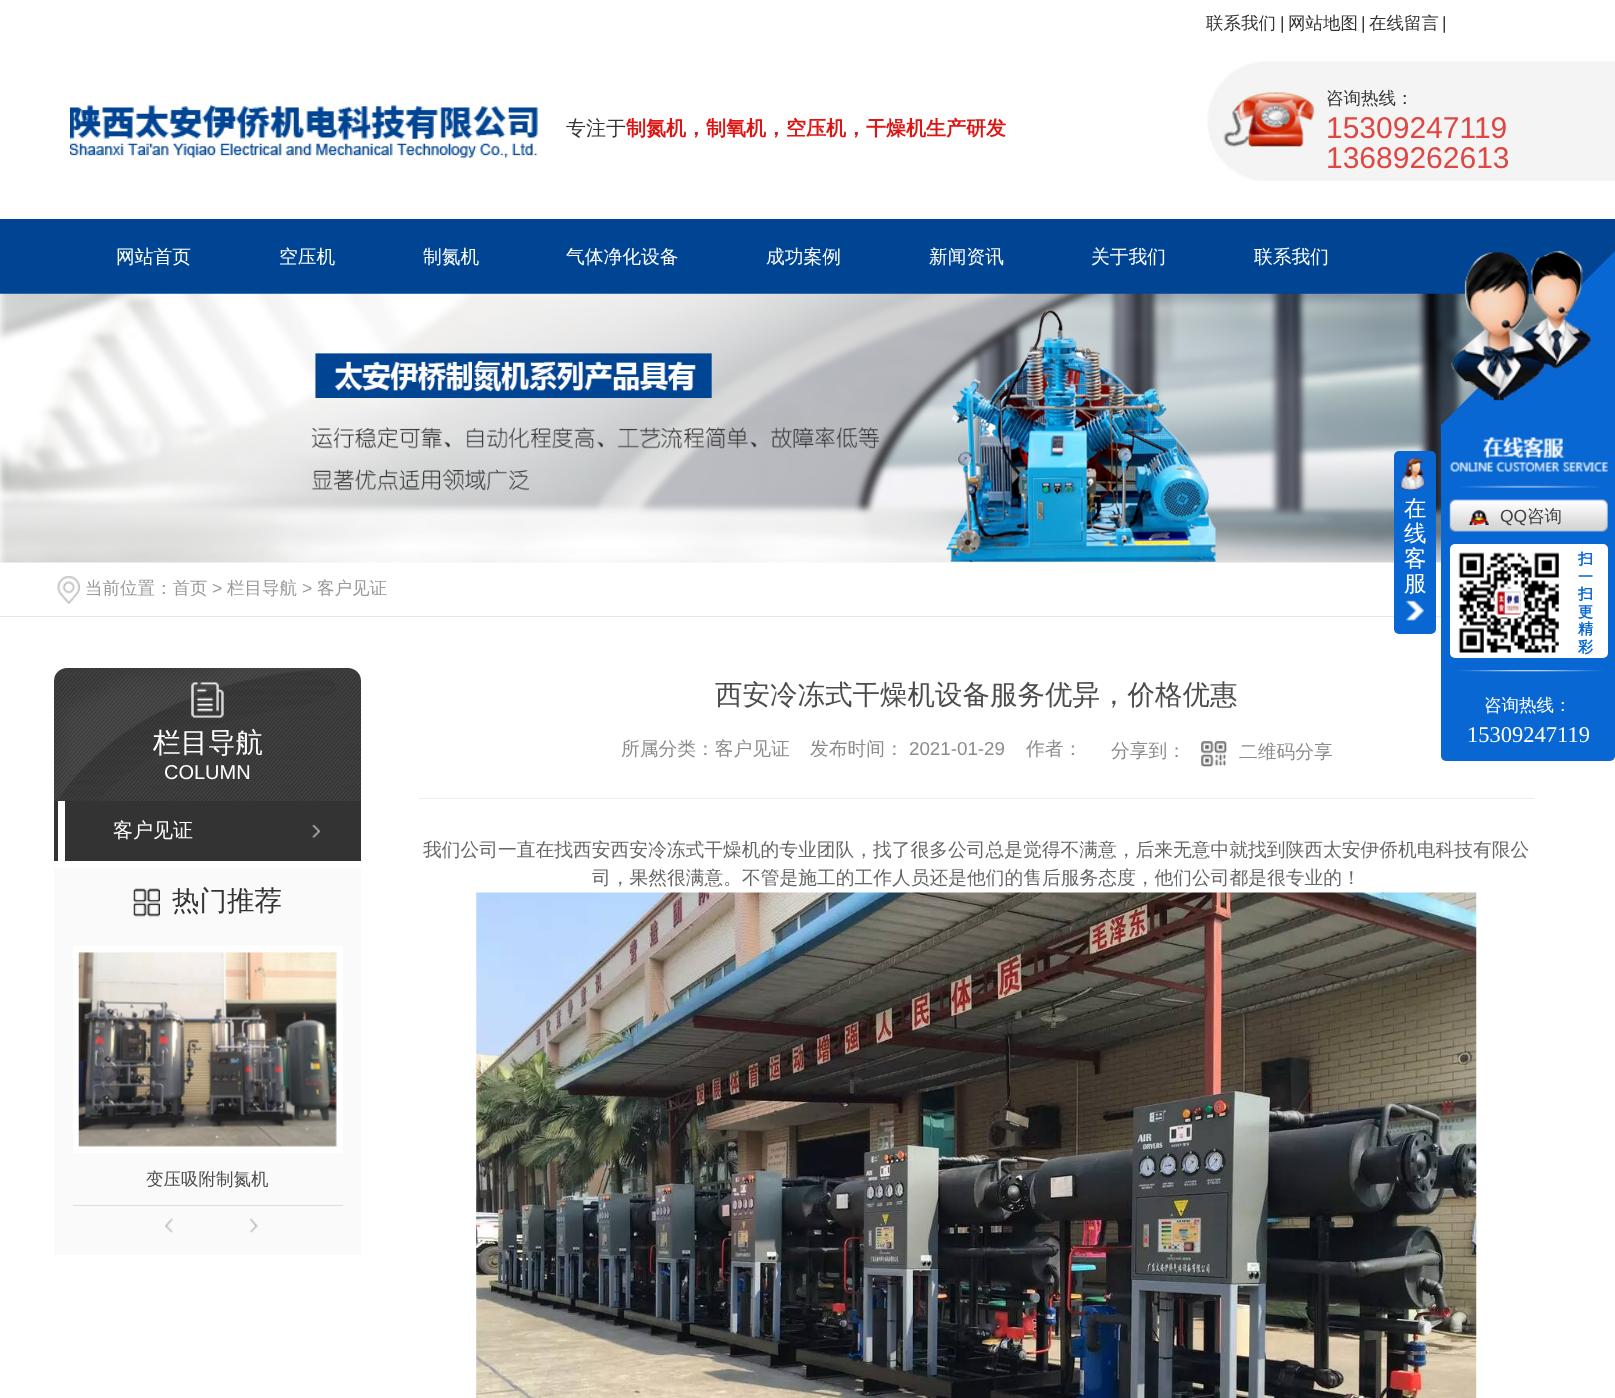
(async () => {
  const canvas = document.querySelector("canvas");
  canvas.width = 1615;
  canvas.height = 1398;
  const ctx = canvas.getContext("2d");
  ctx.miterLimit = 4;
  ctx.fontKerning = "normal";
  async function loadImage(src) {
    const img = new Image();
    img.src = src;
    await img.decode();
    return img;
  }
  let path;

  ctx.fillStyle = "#ffffff";
  ctx.fillRect(0, 0, 1615, 1398);
  ctx.drawImage(await loadImage("img/1.png"), 1207, 61, 408, 120);
  ctx.drawImage(await loadImage("img/2.png"), 70, 104, 468, 56);
  ctx.drawImage(await loadImage("img/3.png"), 1223, 92, 91, 55);
  ctx.fillStyle = "#004593";
  ctx.fillRect(0, 219, 1615, 75);
  ctx.drawImage(await loadImage("img/4.png"), 0, 293, 1548, 270);
  ctx.fillStyle = "#e6e6e6";
  ctx.fillRect(0, 616, 1441, 1);
  ctx.drawImage(await loadImage("img/5.png"), 57, 576, 23, 28);
  ctx.fillStyle = "#0867d3";
  ctx.beginPath();
  ctx.roundRect(1394, 451, 42, 183, 5);
  ctx.fill();
  ctx.drawImage(await loadImage("img/6.png"), 1405, 600, 19, 21);
  ctx.drawImage(await loadImage("img/7.png"), 1397, 457, 28, 33);
  path = new Path2D("M1615 251L1441 425H1615Z");
  ctx.fill(path);
  ctx.drawImage(await loadImage("img/8.png"), 1451, 251, 141, 150);
  ctx.beginPath();
  ctx.roundRect(1441, 425, 174, 336, [0, 0, 5, 5]);
  ctx.fill();
  ctx.drawImage(await loadImage("img/9.png"), 1449, 437, 159, 35);
  ctx.drawImage(await loadImage("img/10.png"), 1459, 485, 143, 3);
  ctx.drawImage(await loadImage("img/11.png"), 1449, 499, 159, 33);
  ctx.drawImage(await loadImage("img/12.png"), 1468, 510, 21, 15);
  ctx.fillStyle = "#ffffff";
  ctx.beginPath();
  ctx.roundRect(1450, 544, 158, 114, 5);
  ctx.fill();
  ctx.drawImage(await loadImage("img/13.png"), 1458, 552, 101, 101);
  ctx.drawImage(await loadImage("img/14.png"), 1457, 670, 147, 2);
  ctx.fillStyle = "#333333";
  ctx.beginPath();
  ctx.roundRect(54, 668, 307, 140, [13, 13, 0, 0]);
  ctx.fill();
  ctx.drawImage(await loadImage("img/15.png"), 54, 668, 307, 133);
  ctx.drawImage(await loadImage("img/16.png"), 191, 682, 33, 36);
  ctx.fillRect(54, 808, 307, 53);
  ctx.fillStyle = "#ffffff";
  ctx.fillRect(58, 801, 7, 60);
  ctx.drawImage(await loadImage("img/17.png"), 312, 825, 8, 13);
  ctx.fillStyle = "#fafafa";
  ctx.fillRect(54, 868, 307, 387);
  ctx.drawImage(await loadImage("img/18.png"), 133, 888, 27, 29);
  ctx.strokeStyle = "#ffffff";
  ctx.lineWidth = 6;
  ctx.strokeRect(76, 949, 264, 201);
  ctx.drawImage(await loadImage("img/19.png"), 78, 952, 259, 195);
  ctx.fillStyle = "#dededd";
  ctx.fillRect(73, 1205, 270, 1);
  ctx.drawImage(await loadImage("img/20.png"), 165, 1218, 8, 15);
  ctx.drawImage(await loadImage("img/21.png"), 250, 1218, 8, 15);
  ctx.drawImage(await loadImage("img/22.png"), 1201, 741, 26, 26);
  ctx.fillStyle = "#ededed";
  ctx.fillRect(419, 798, 1115, 1);
  ctx.drawImage(await loadImage("img/23.png"), 476, 892, 1001, 506);
  ctx.font = "500 17.5px WenQuanYi Zen Hei";
  ctx.fillStyle = "#333333";
  ctx.fillText("联系我们", 1206, 29);
  ctx.font = "17.5px Liberation Sans";
  ctx.fillText("|", 1280, 29);
  ctx.font = "500 17.5px WenQuanYi Zen Hei";
  ctx.fillText("网站地图", 1288, 29);
  ctx.font = "17.5px Liberation Sans";
  ctx.fillText("|", 1361, 29);
  ctx.font = "500 17.5px WenQuanYi Zen Hei";
  ctx.fillText("在线留言", 1369, 29);
  ctx.font = "17.5px Liberation Sans";
  ctx.fillText("|", 1442, 29);
  ctx.font = "500 20px WenQuanYi Zen Hei";
  ctx.fillText("专注于", 566, 135);
  ctx.font = "bold 20px WenQuanYi Zen Hei";
  ctx.fillStyle = "#dd1513";
  ctx.fillText("制氮机，制氧机，空压机，干燥机生产研发", 626, 135);
  ctx.font = "500 17.5px WenQuanYi Zen Hei";
  ctx.fillStyle = "#333333";
  ctx.fillText("咨询热线：", 1326, 104);
  ctx.font = "30px Liberation Sans";
  ctx.fillStyle = "#de4742";
  ctx.fillText("15309247119", 1326, 138);
  ctx.fillText("13689262613", 1326, 168);
  ctx.font = "500 18.75px WenQuanYi Zen Hei";
  ctx.fillStyle = "#ffffff";
  for (const [text, x, y] of [
    ["网站首页", 116, 263],
    ["空压机", 279, 263],
    ["制氮机", 423, 263],
    ["气体净化设备", 566, 263],
    ["成功案例", 766, 263],
    ["新闻资讯", 929, 263],
    ["关于我们", 1091, 263],
    ["联系我们", 1254, 263],
  ]) {
    ctx.fillText(text, x, y);
  }
  ctx.font = "500 17.5px WenQuanYi Zen Hei";
  ctx.fillStyle = "#999999";
  ctx.fillText("当前位置：首页", 85, 594);
  ctx.font = "17.5px Liberation Sans";
  ctx.fillText(">", 212, 594);
  ctx.font = "500 17.5px WenQuanYi Zen Hei";
  ctx.fillText("栏目导航", 227, 594);
  ctx.font = "17.5px Liberation Sans";
  ctx.fillText(">", 302, 594);
  ctx.font = "500 17.5px WenQuanYi Zen Hei";
  ctx.fillText("客户见证", 317, 594);
  ctx.font = "500 22.5px WenQuanYi Zen Hei";
  ctx.fillStyle = "#ffffff";
  for (const [text, x, y] of [
    ["在", 1404, 516],
    ["线", 1404, 541],
    ["客", 1404, 566],
    ["服", 1404, 591],
  ]) {
    ctx.fillText(text, x, y);
  }
  ctx.font = "17.5px Liberation Sans";
  ctx.fillStyle = "#404040";
  ctx.fillText("QQ", 1500, 522);
  ctx.font = "500 17.5px WenQuanYi Zen Hei";
  ctx.fillText("咨询", 1527, 522);
  ctx.font = "bold 15px WenQuanYi Zen Hei";
  ctx.fillStyle = "#0867d3";
  for (const [text, x, y] of [
    ["扫", 1578, 564],
    ["一", 1578, 582],
    ["扫", 1578, 599],
    ["更", 1578, 617],
    ["精", 1578, 634],
    ["彩", 1578, 652],
  ]) {
    ctx.fillText(text, x, y);
  }
  ctx.font = "500 17.5px WenQuanYi Zen Hei";
  ctx.fillStyle = "#ffffff";
  ctx.fillText("咨询热线：", 1484, 711);
  ctx.font = "22.5px Liberation Serif";
  ctx.fillText("15309247119", 1467, 742);
  ctx.font = "500 27.5px WenQuanYi Zen Hei";
  ctx.fillText("栏目导航", 153, 752);
  ctx.font = "20px Liberation Sans";
  ctx.fillText("COLUMN", 164, 779);
  ctx.font = "500 20px WenQuanYi Zen Hei";
  ctx.fillText("客户见证", 113, 837);
  ctx.font = "500 27.5px WenQuanYi Zen Hei";
  ctx.fillStyle = "#333333";
  ctx.fillText("热门推荐", 172, 910);
  ctx.font = "500 17.5px WenQuanYi Zen Hei";
  ctx.fillStyle = "#4c4c4c";
  ctx.fillText("变压吸附制氮机", 146, 1185);
  ctx.font = "500 27.5px WenQuanYi Zen Hei";
  ctx.fillText("西安冷冻式干燥机设备服务优异，价格优惠", 715, 704);
  ctx.font = "500 18.75px WenQuanYi Zen Hei";
  ctx.fillStyle = "#8c8c8c";
  ctx.fillText("所属分类：客户见证", 621, 755);
  ctx.fillText("发布时间：", 810, 755);
  ctx.font = "18.75px Liberation Sans";
  ctx.fillText("2021-01-29", 909, 755);
  ctx.font = "500 18.75px WenQuanYi Zen Hei";
  for (const [text, x, y] of [
    ["作者：", 1026, 755],
    ["分享到：", 1111, 757],
    ["二维码分享", 1239, 758],
  ]) {
    ctx.fillText(text, x, y);
  }
  ctx.fillStyle = "#666666";
  ctx.fillText("我们公司一直在找西安西安冷冻式干燥机的专业团队，找了很多公司总是觉得不满意，后来无意中就找到陕西太安伊侨机电科技有限公", 423, 856);
  ctx.fillText("司，果然很满意。不管是施工的工作人员还是他们的售后服务态度，他们公司都是很专业的！", 592, 884);
})();
